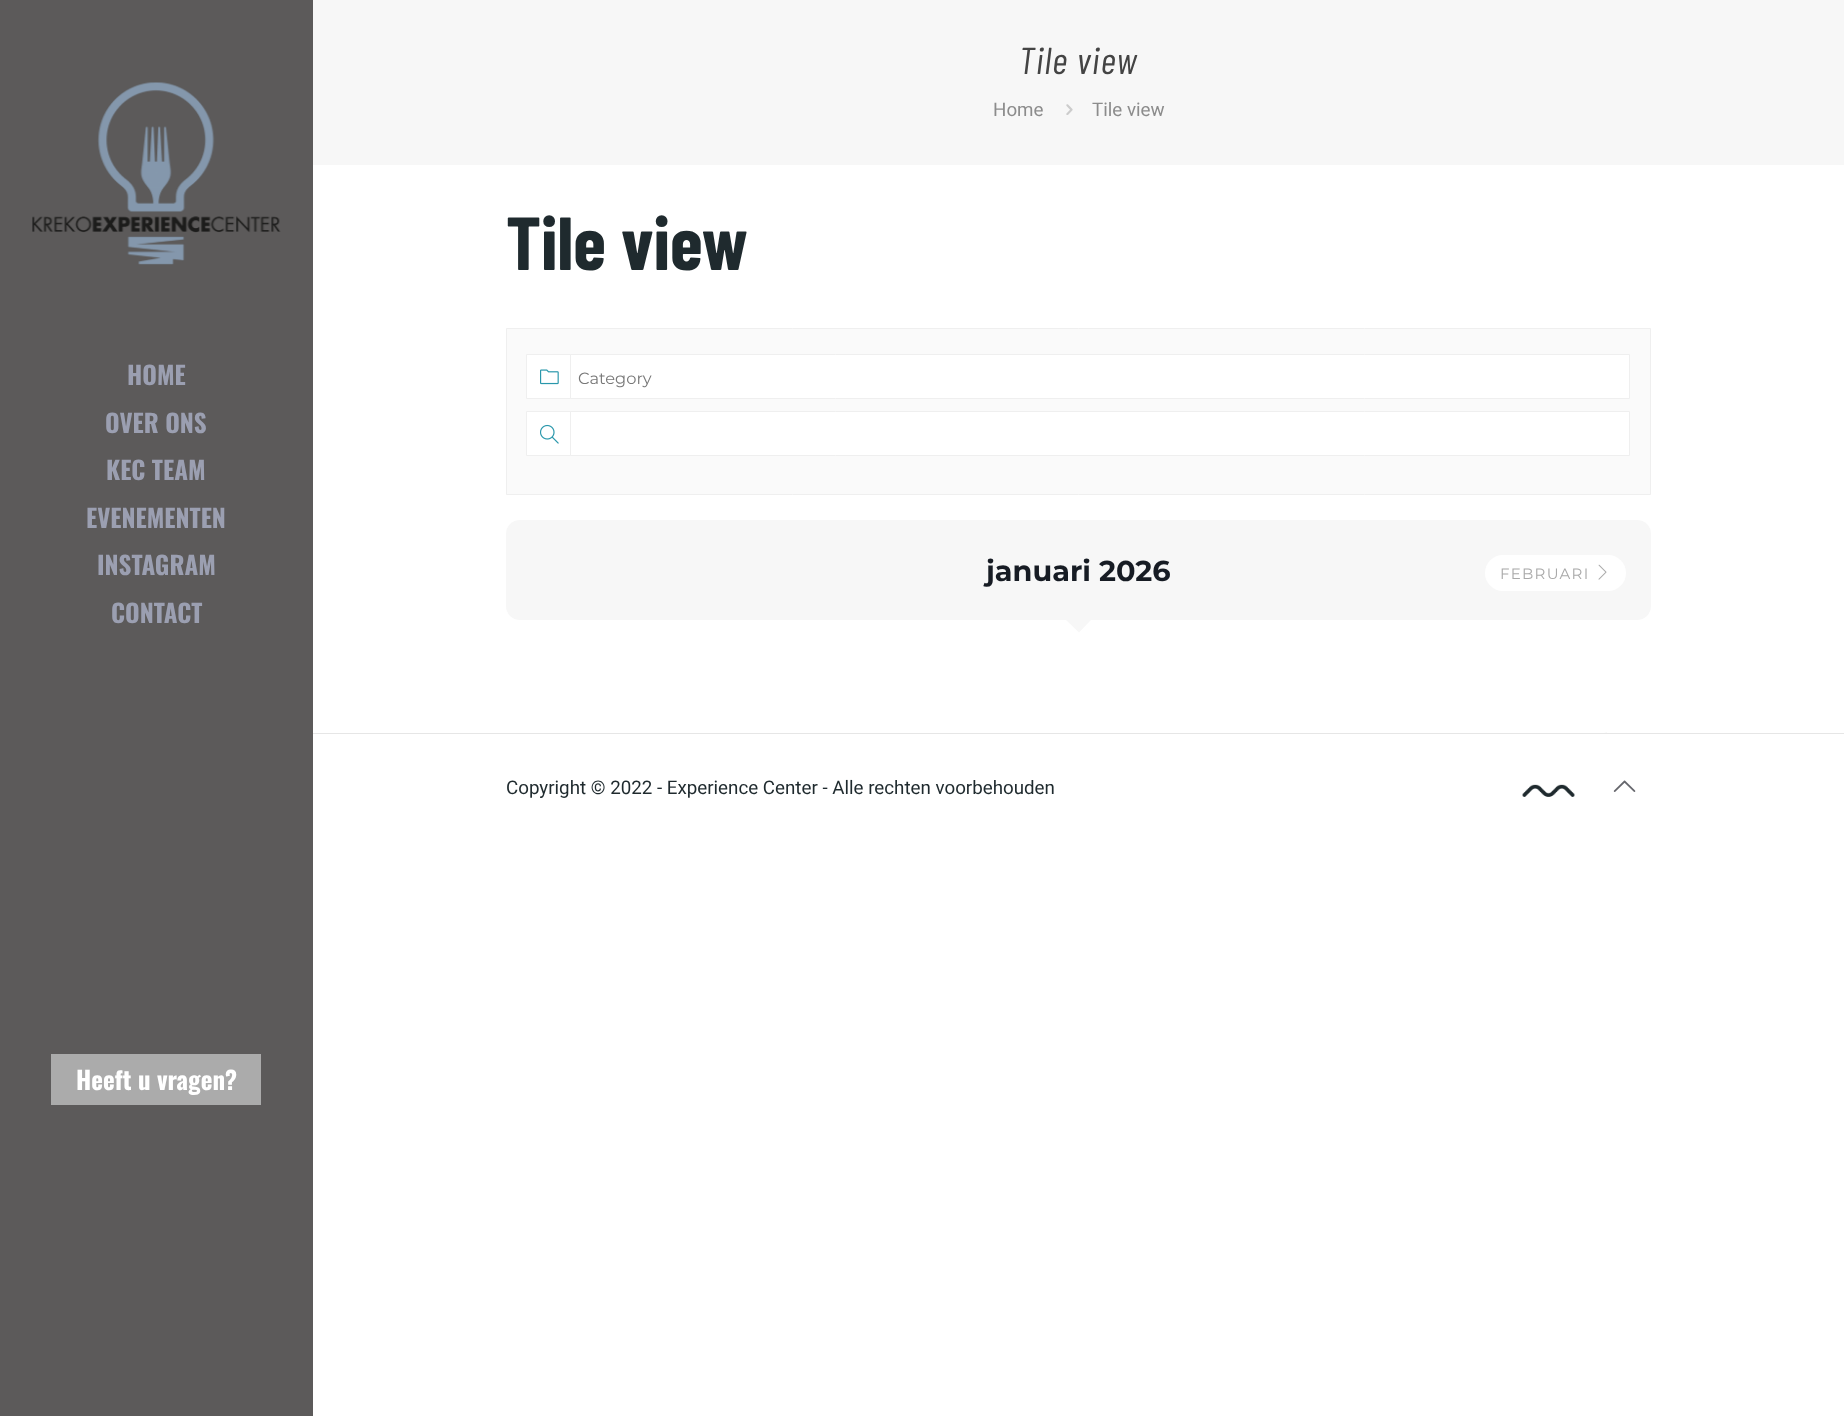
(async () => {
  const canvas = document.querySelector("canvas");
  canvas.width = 1844;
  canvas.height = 1416;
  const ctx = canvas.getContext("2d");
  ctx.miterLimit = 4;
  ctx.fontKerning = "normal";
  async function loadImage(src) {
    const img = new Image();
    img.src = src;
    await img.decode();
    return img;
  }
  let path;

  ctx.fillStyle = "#ffffff";
  ctx.fillRect(0, 0, 1844, 1416);
  ctx.fillStyle = "#5c5a5a";
  ctx.fillRect(0, 0, 313, 1416);
  ctx.drawImage(await loadImage("img/1.png"), 32, 82, 249, 183);
  ctx.fillStyle = "#ababab";
  ctx.fillRect(51, 1054, 210, 51);
  ctx.fillStyle = "#f7f7f7";
  ctx.fillRect(313, 0, 1531, 165);
  ctx.drawImage(await loadImage("img/2.png"), 1066, 104, 7, 11);
  ctx.fillStyle = "#fafafa";
  ctx.beginPath();
  ctx.rect(506.5, 328.5, 1144, 166);
  ctx.fill();
  ctx.strokeStyle = "#efefef";
  ctx.stroke();
  ctx.fillStyle = "#ffffff";
  ctx.beginPath();
  ctx.rect(526.5, 354.5, 44, 44);
  ctx.fill();
  ctx.stroke();
  ctx.drawImage(await loadImage("img/3.png"), 540, 369, 19, 16);
  ctx.beginPath();
  ctx.rect(570.5, 354.5, 1059, 44);
  ctx.fill();
  ctx.stroke();
  ctx.beginPath();
  ctx.rect(526.5, 411.5, 44, 44);
  ctx.fill();
  ctx.stroke();
  ctx.drawImage(await loadImage("img/4.png"), 540, 424, 19, 20);
  ctx.beginPath();
  ctx.rect(570.5, 411.5, 1059, 44);
  ctx.fill();
  ctx.stroke();
  ctx.fillStyle = "#f7f7f7";
  ctx.beginPath();
  ctx.roundRect(506, 520, 1145, 100, 14);
  ctx.fill();
  ctx.fillStyle = "#ffffff";
  ctx.beginPath();
  ctx.roundRect(1485, 555, 141, 36, 18);
  ctx.fill();
  ctx.drawImage(await loadImage("img/5.png"), 1598, 564, 9, 16);
  ctx.fillStyle = "#f7f7f7";
  path = new Path2D("M1066 620H1091L1079 632.5Z");
  ctx.fill(path);
  ctx.drawImage(await loadImage("img/6.png"), 1522, 732, 85, 65);
  ctx.fillStyle = "#e6e6e6";
  ctx.fillRect(313, 733, 1531, 1);
  ctx.drawImage(await loadImage("img/7.png"), 1613, 780, 23, 12);
  ctx.font = "bold 25px Oswald";
  ctx.fillStyle = "#9b9fb1";
  for (const [text, x, y] of [
    ["HOME", 127, 385],
    ["OVER ONS", 105, 433],
    ["KEC TEAM", 106, 480],
    ["EVENEMENTEN", 86, 528],
    ["INSTAGRAM", 97, 575],
    ["CONTACT", 111, 623],
  ]) {
    ctx.fillText(text, x, y);
  }
  ctx.fillStyle = "#ffffff";
  ctx.fillText("Heeft u vragen?", 76, 1090);
  ctx.letterSpacing = "1.25px";
  ctx.font = "italic 37.5px Barlow Condensed";
  ctx.fillStyle = "#444444";
  ctx.fillText("Tile view", 1019, 74);
  ctx.letterSpacing = "0px";
  ctx.font = "18.75px Roboto";
  ctx.fillStyle = "#8c8c8c";
  ctx.fillText("Home", 993, 116);
  ctx.fillText("Tile view", 1092, 116);
  ctx.font = "bold 75px Barlow Condensed";
  ctx.fillStyle = "#1f2a2e";
  ctx.fillText("Tile view", 506, 270);
  ctx.font = "16.25px Montserrat";
  ctx.fillStyle = "#777777";
  ctx.fillText("Category", 578, 384);
  ctx.font = "bold 28.75px Montserrat";
  ctx.fillStyle = "#171c24";
  ctx.fillText("januari 2026", 986, 581);
  ctx.letterSpacing = "1.25px";
  ctx.font = "15px Montserrat";
  ctx.fillStyle = "#a9a9a9";
  ctx.fillText("FEBRUARI", 1500, 579);
  ctx.letterSpacing = "0px";
  ctx.font = "18.75px Roboto";
  ctx.fillStyle = "#1f2a2e";
  ctx.fillText("Copyright © 2022 - Experience Center - Alle rechten voorbehouden", 506, 794);
})();
